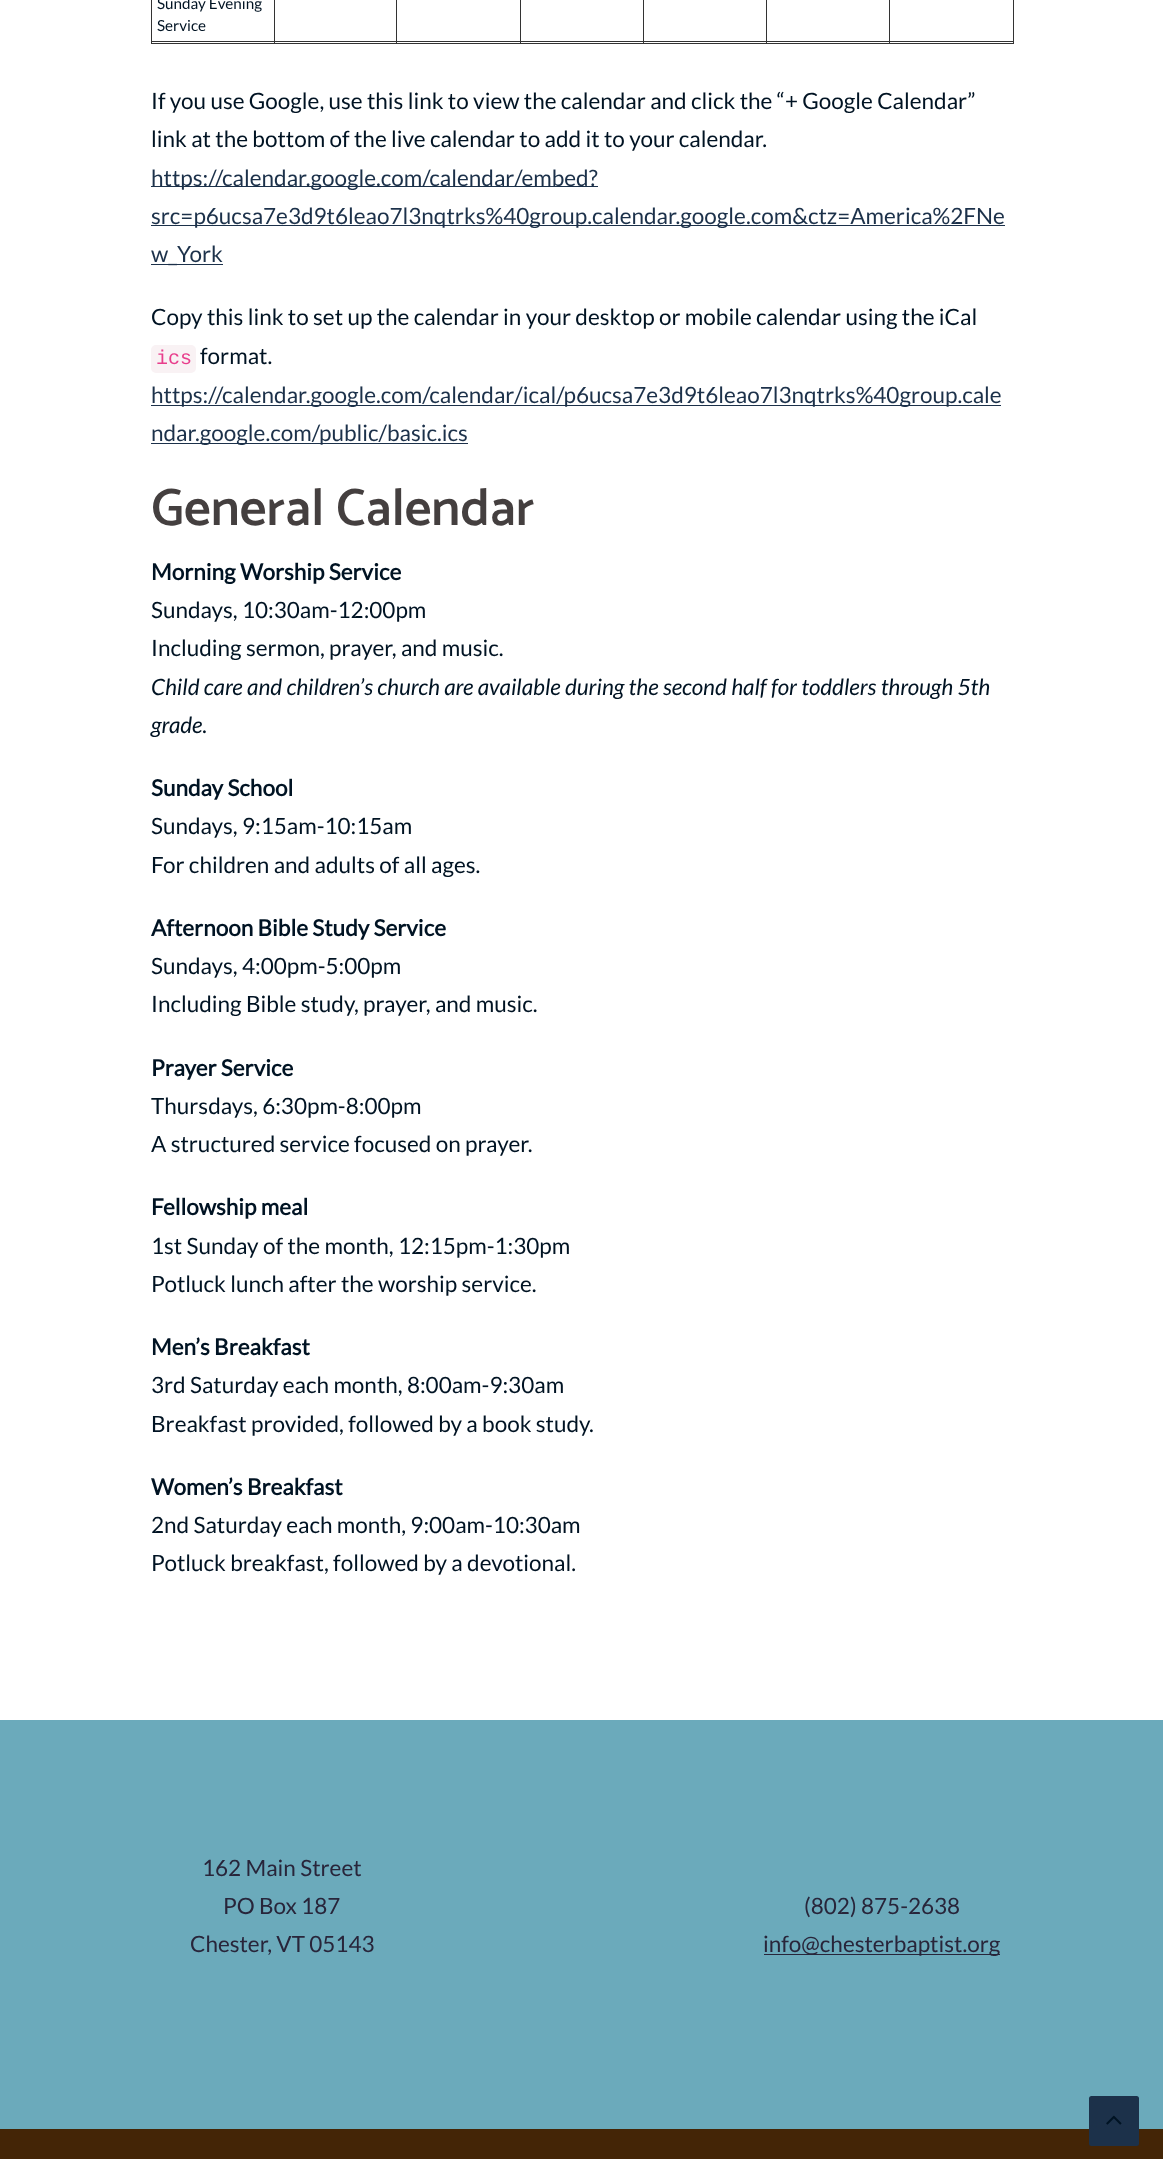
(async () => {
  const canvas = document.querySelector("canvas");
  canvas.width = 1163;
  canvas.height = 2159;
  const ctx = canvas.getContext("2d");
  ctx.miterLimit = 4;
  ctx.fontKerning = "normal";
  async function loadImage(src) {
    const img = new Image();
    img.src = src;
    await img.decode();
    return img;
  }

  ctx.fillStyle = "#ffffff";
  ctx.fillRect(0, 0, 1163, 2159);
  for (const [x, y, w, h, color] of [
    [1013, 0, 1, 43, "#333333"],
    [889, 41, 125, 1, "#333333"],
    [889, 0, 1, 43, "#333333"],
    [766, 41, 124, 1, "#333333"],
    [766, 0, 1, 43, "#333333"],
    [643, 41, 125, 1, "#333333"],
    [643, 0, 1, 43, "#333333"],
    [520, 41, 124, 1, "#333333"],
    [520, 0, 1, 43, "#333333"],
    [396, 41, 125, 1, "#333333"],
    [396, 0, 1, 43, "#333333"],
    [274, 41, 124, 1, "#333333"],
    [274, 0, 1, 43, "#333333"],
    [151, 41, 124, 1, "#333333"],
    [151, 0, 1, 43, "#333333"],
    [151, 43, 863, 1, "#333333"],
    [151, 186, 447, 1, "#1c314a"],
    [151, 225, 854, 1, "#1c314a"],
    [151, 264, 72, 1, "#1c314a"],
  ]) {
    ctx.fillStyle = color;
    ctx.fillRect(x, y, w, h);
  }
  ctx.fillStyle = "#f9f2f4";
  ctx.beginPath();
  ctx.roundRect(151, 345, 45, 28, 5);
  ctx.fill();
  for (const [x, y, w, h, color] of [
    [151, 405, 850, 1, "#1c314a"],
    [151, 443, 317, 1, "#1c314a"],
    [0, 1720, 1163, 409, "#6baabb"],
    [764, 1954, 236, 1, "#28253a"],
    [0, 2129, 1163, 30, "#442506"],
  ]) {
    ctx.fillStyle = color;
    ctx.fillRect(x, y, w, h);
  }
  ctx.fillStyle = "#1c314a";
  ctx.beginPath();
  ctx.roundRect(1089, 2096, 50, 50, 2.5);
  ctx.fill();
  ctx.drawImage(await loadImage("img/1.png"), 1106, 2115, 16, 10);
  ctx.font = "15.25px Lato";
  ctx.fillStyle = "#001323";
  ctx.fillText("Sunday Evening", 157, 9);
  ctx.fillText("Service", 157, 31);
  ctx.font = "22.5px Lato";
  ctx.fillText("If you use Google, use this link to view the calendar and click the “+ Google Calendar”", 151, 109);
  ctx.fillText("link at the bottom of the live calendar to add it to your calendar.", 151, 147);
  ctx.fillStyle = "#1c314a";
  for (const [text, x, y] of [
    ["https://calendar.google.com/calendar/embed?", 151, 186],
    ["src=p6ucsa7e3d9t6leao7l3nqtrks%40group.calendar.google.com&ctz=America%2FNe", 151, 224],
    ["w_York", 151, 262],
  ]) {
    ctx.fillText(text, x, y);
  }
  ctx.fillStyle = "#001323";
  ctx.fillText("Copy this link to set up the calendar in your desktop or mobile calendar using the iCal", 151, 325);
  ctx.font = "20px Liberation Mono";
  ctx.fillStyle = "#e83e8c";
  ctx.fillText("ics", 156, 364);
  ctx.font = "22.5px Lato";
  ctx.fillStyle = "#001323";
  ctx.fillText("format.", 200, 364);
  ctx.fillStyle = "#1c314a";
  ctx.fillText("https://calendar.google.com/calendar/ical/p6ucsa7e3d9t6leao7l3nqtrks%40group.cale", 151, 403);
  ctx.fillText("ndar.google.com/public/basic.ics", 151, 441);
  ctx.font = "600 52.5px Catamaran";
  ctx.fillStyle = "#443f3f";
  ctx.fillText("General Calendar", 151, 525);
  ctx.font = "bold 22.5px Lato";
  ctx.fillStyle = "#001323";
  ctx.fillText("Morning Worship Service", 151, 580);
  ctx.font = "22.5px Lato";
  ctx.fillText("Sundays, 10:30am-12:00pm", 151, 618);
  ctx.fillText("Including sermon, prayer, and music.", 151, 656);
  ctx.font = "italic 22.5px Lato";
  ctx.fillText("Child care and children’s church are available during the second half for toddlers through 5th", 151, 695);
  ctx.fillText("grade.", 151, 733);
  ctx.font = "bold 22.5px Lato";
  ctx.fillText("Sunday School", 151, 796);
  ctx.font = "22.5px Lato";
  ctx.fillText("Sundays, 9:15am-10:15am", 151, 834);
  ctx.fillText("For children and adults of all ages.", 151, 873);
  ctx.font = "bold 22.5px Lato";
  ctx.fillText("Afternoon Bible Study Service", 151, 936);
  ctx.font = "22.5px Lato";
  ctx.fillText("Sundays, 4:00pm-5:00pm", 151, 974);
  ctx.fillText("Including Bible study, prayer, and music.", 151, 1012);
  ctx.font = "bold 22.5px Lato";
  ctx.fillText("Prayer Service", 151, 1076);
  ctx.font = "22.5px Lato";
  ctx.fillText("Thursdays, 6:30pm-8:00pm", 151, 1114);
  ctx.fillText("A structured service focused on prayer.", 151, 1152);
  ctx.font = "bold 22.5px Lato";
  ctx.fillText("Fellowship meal", 151, 1215);
  ctx.font = "22.5px Lato";
  ctx.fillText("1st Sunday of the month, 12:15pm-1:30pm", 151, 1254);
  ctx.fillText("Potluck lunch after the worship service.", 151, 1292);
  ctx.font = "bold 22.5px Lato";
  ctx.fillText("Men’s Breakfast", 151, 1355);
  ctx.font = "22.5px Lato";
  ctx.fillText("3rd Saturday each month, 8:00am-9:30am", 151, 1393);
  ctx.fillText("Breakfast provided, followed by a book study.", 151, 1432);
  ctx.font = "bold 22.5px Lato";
  ctx.fillText("Women’s Breakfast", 151, 1495);
  ctx.font = "22.5px Lato";
  ctx.fillText("2nd Saturday each month, 9:00am-10:30am", 151, 1533);
  ctx.fillText("Potluck breakfast, followed by a devotional.", 151, 1571);
  ctx.fillStyle = "#28253a";
  for (const [text, x, y] of [
    ["162 Main Street", 202, 1876],
    ["PO Box 187", 223, 1914],
    ["Chester, VT 05143", 190, 1952],
    ["(802) 875-2638", 804, 1914],
    ["info@chesterbaptist.org", 763, 1952],
  ]) {
    ctx.fillText(text, x, y);
  }
})();
